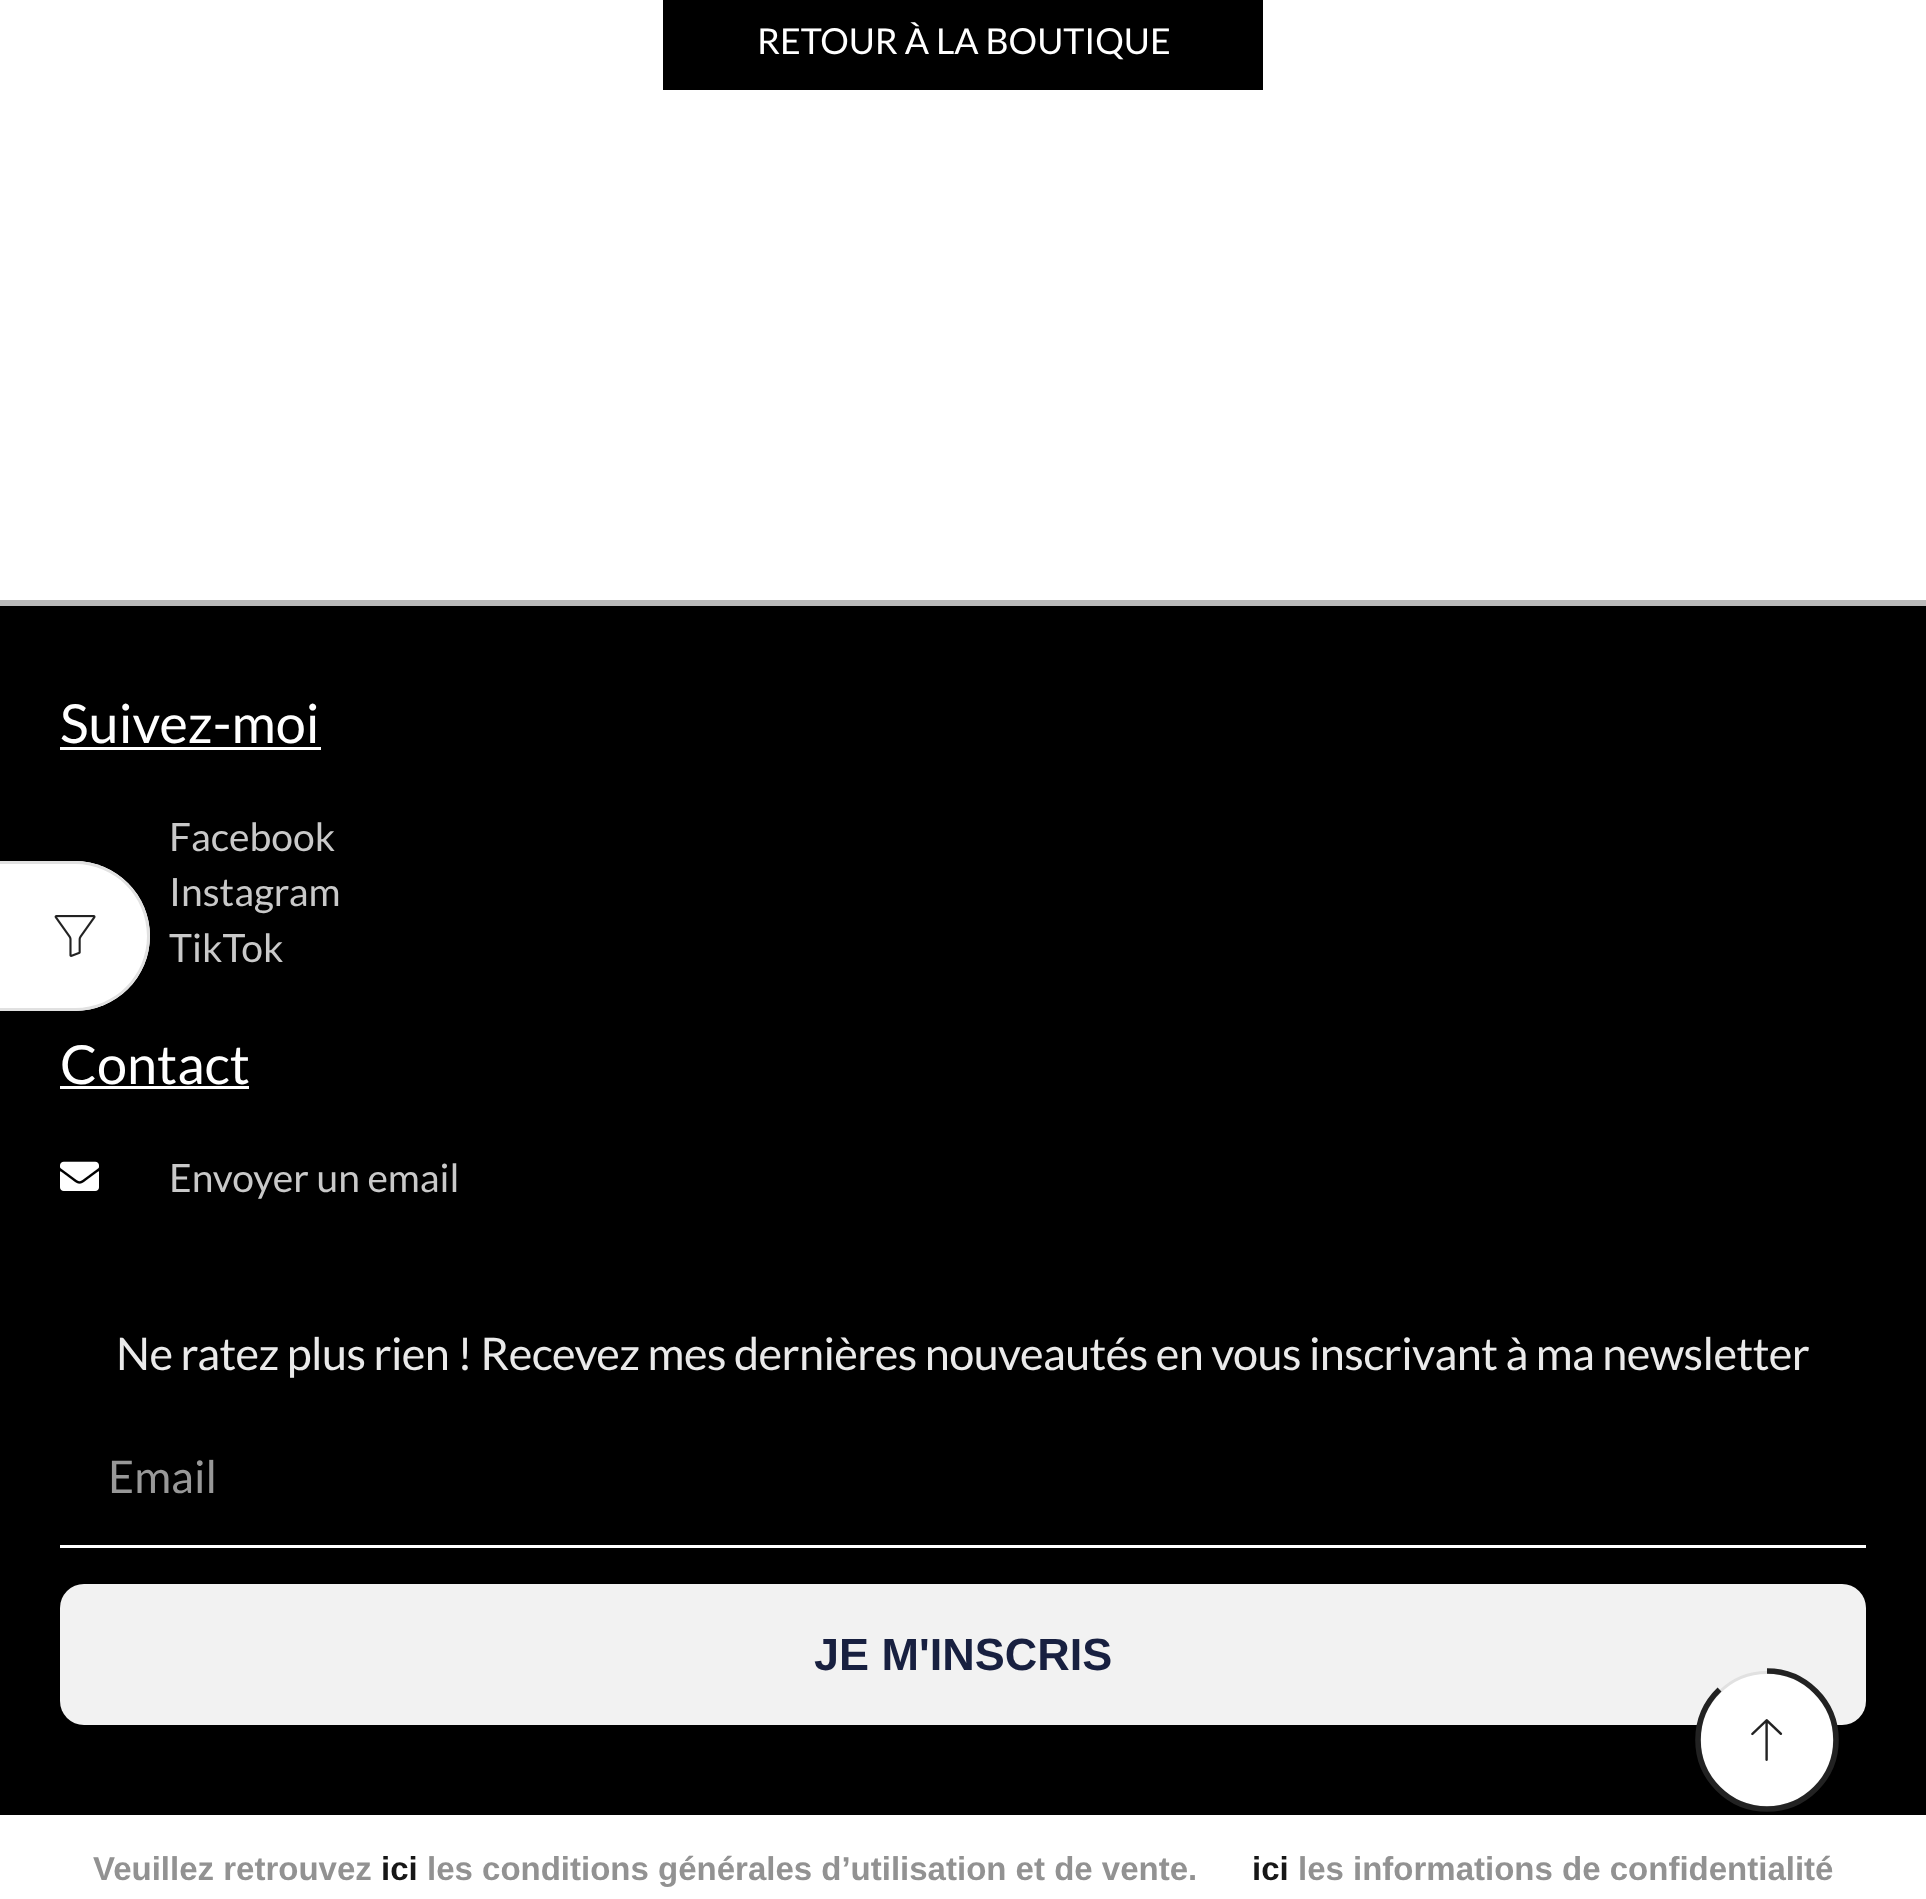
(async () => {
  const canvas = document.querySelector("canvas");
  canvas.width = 1926;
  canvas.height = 1899;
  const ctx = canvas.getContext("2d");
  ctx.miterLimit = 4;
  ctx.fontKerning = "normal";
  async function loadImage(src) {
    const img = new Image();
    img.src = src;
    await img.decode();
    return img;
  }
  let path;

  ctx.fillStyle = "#ffffff";
  ctx.fillRect(0, 0, 1926, 1899);
  ctx.fillStyle = "#000000";
  ctx.fillRect(663, 0, 600, 90);
  ctx.fillRect(0, 606, 1926, 1209);
  ctx.fillStyle = "#f2f2f2";
  ctx.beginPath();
  ctx.roundRect(60, 1584, 1806, 141, 24);
  ctx.fill();
  ctx.fillStyle = "#ffffff";
  ctx.beginPath();
  ctx.arc(1767, 1740, 67.5, 0, Math.PI * 2);
  ctx.fill();
  ctx.strokeStyle = "#e1e1e1";
  ctx.lineWidth = 3;
  ctx.stroke();
  path = new Path2D("M1767 1671C1805 1671 1836 1702 1836 1740C1836 1778 1805 1809 1767 1809C1729 1809 1698 1778 1698 1740C1698 1720 1706 1702.5 1719.5 1689.5");
  ctx.strokeStyle = "#222222";
  ctx.lineWidth = 5.6;
  ctx.stroke(path);
  ctx.drawImage(await loadImage("img/1.png"), 1751, 1719, 32, 42);
  for (const [x, y, w, h, color] of [
    [0, 600, 1926, 6, "#bababa"],
    [60, 747, 261, 3, "#ffffff"],
    [60, 1086, 189, 3, "#ffffff"],
  ]) {
    ctx.fillStyle = color;
    ctx.fillRect(x, y, w, h);
  }
  ctx.drawImage(await loadImage("img/2.png"), 60, 1161, 39, 30);
  ctx.fillRect(60, 1545, 1806, 3);
  ctx.beginPath();
  ctx.roundRect(0, 861, 150, 150, [0, 75, 75, 0]);
  ctx.fill();
  ctx.fillStyle = "#e1e1e1";
  path = new Path2D("M0 861H75C116 861 150 895 150 936C150 977 116 1011 75 1011H0ZM0 864H75C115 864 147 896 147 936C147 976 115 1008 75 1008H0Z");
  ctx.fill(path, "evenodd");
  ctx.drawImage(await loadImage("img/3.png"), 54, 915, 42, 42);
  ctx.font = "35.75px Lato";
  ctx.fillStyle = "#ffffff";
  ctx.fillText("RETOUR À LA BOUTIQUE", 757, 54);
  ctx.font = "54px Lato";
  ctx.fillText("Suivez-moi", 60, 743);
  ctx.font = "39px Lato";
  ctx.fillStyle = "#c9c9c9";
  for (const [text, x, y] of [
    ["Facebook", 169, 851],
    ["Instagram", 169, 906],
    ["TikTok", 169, 962],
  ]) {
    ctx.fillText(text, x, y);
  }
  ctx.font = "54px Lato";
  ctx.fillStyle = "#ffffff";
  ctx.fillText("Contact", 60, 1084);
  ctx.font = "39px Lato";
  ctx.fillStyle = "#c9c9c9";
  ctx.fillText("Envoyer un email", 169, 1192);
  ctx.letterSpacing = "-0.6px";
  ctx.font = "45px Lato";
  ctx.fillStyle = "#eaeaea";
  ctx.fillText("Ne ratez plus rien ! Recevez mes dernières nouveautés en vous inscrivant à ma newsletter", 116, 1370);
  ctx.letterSpacing = "0px";
  ctx.fillStyle = "#989898";
  ctx.fillText("Email", 108, 1493);
  ctx.font = "bold 45px Liberation Sans";
  ctx.fillStyle = "#182040";
  ctx.fillText("JE M'INSCRIS", 814, 1670);
  ctx.font = "bold 33px Liberation Sans";
  ctx.fillStyle = "#929292";
  ctx.fillText("Veuillez retrouvez", 93, 1880);
  ctx.fillStyle = "#171717";
  ctx.fillText("ici", 381, 1880);
  ctx.fillStyle = "#929292";
  ctx.fillText("les conditions générales d’utilisation et de vente.", 427, 1880);
  ctx.fillStyle = "#171717";
  ctx.fillText("ici", 1252, 1880);
  ctx.fillStyle = "#929292";
  ctx.fillText("les informations de confidentialité", 1298, 1880);
})();
